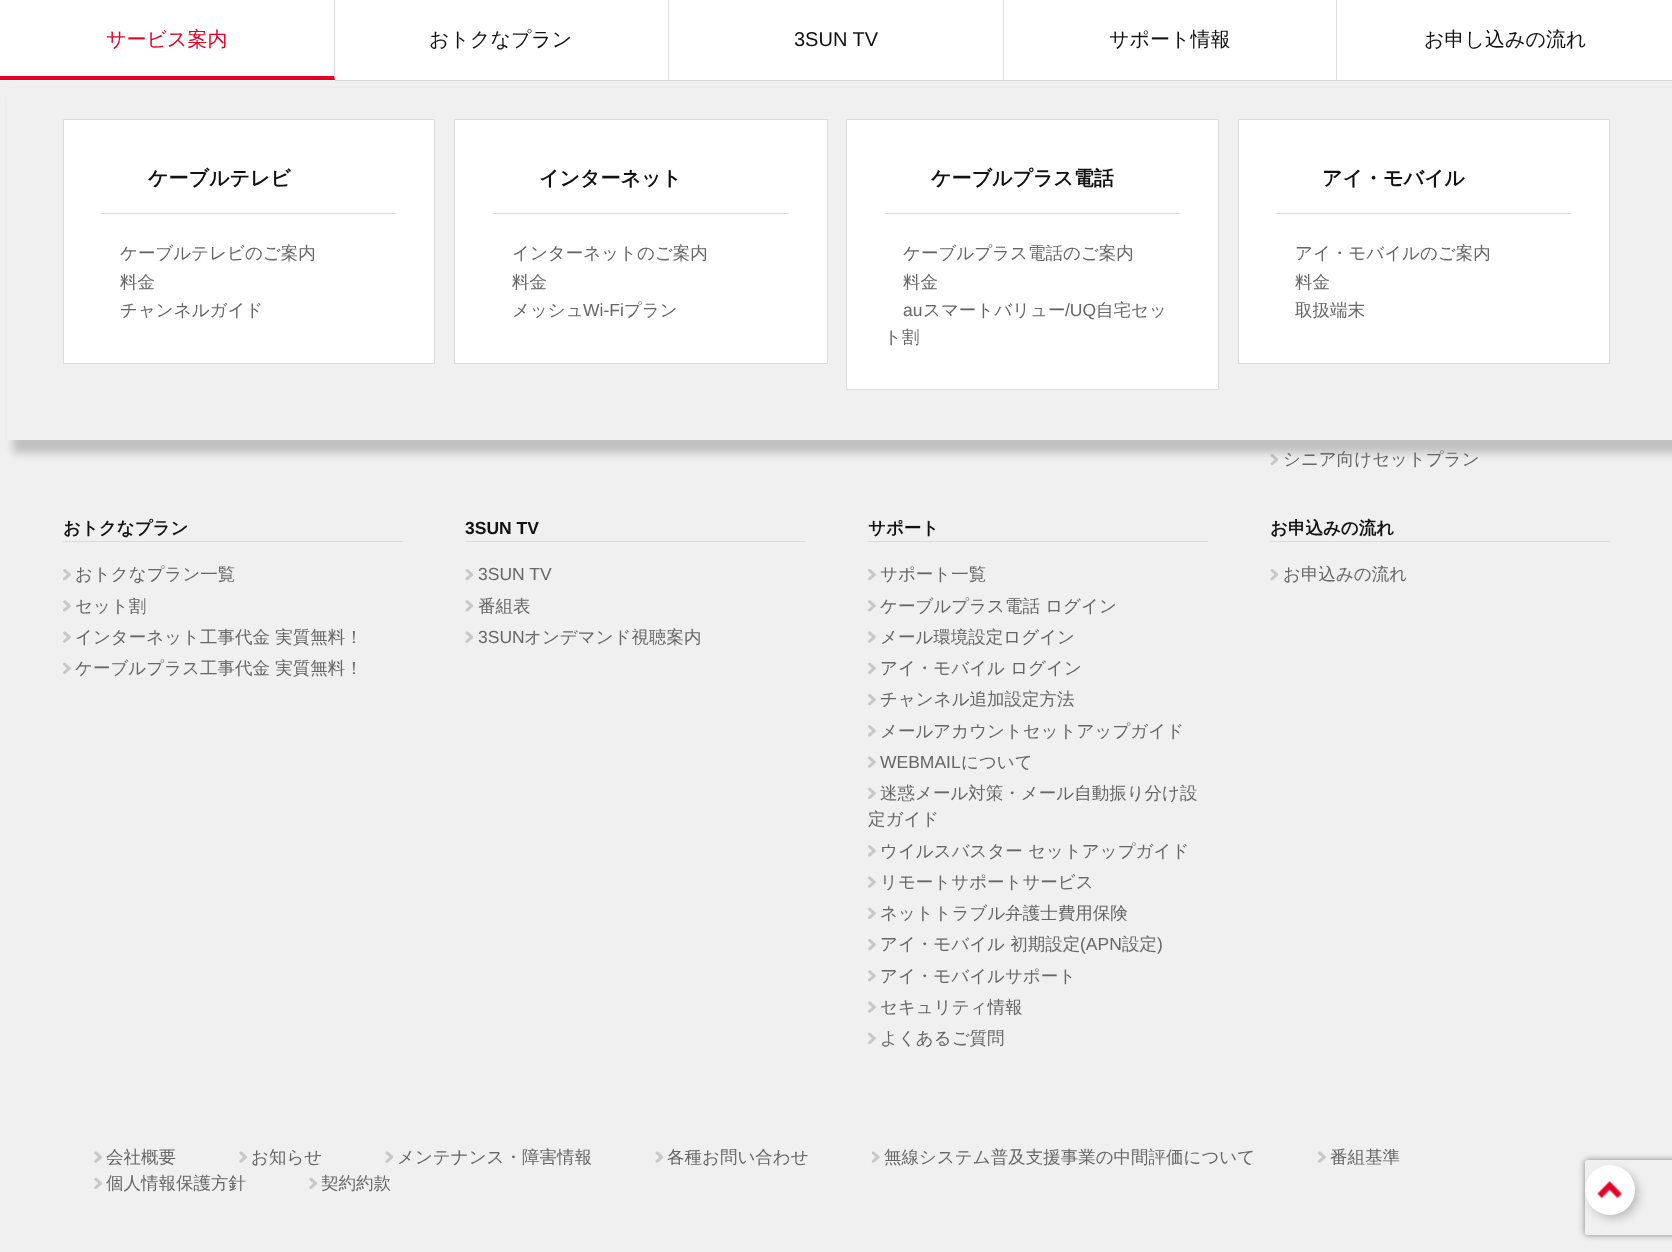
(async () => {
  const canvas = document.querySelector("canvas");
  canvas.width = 1672;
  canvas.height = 1252;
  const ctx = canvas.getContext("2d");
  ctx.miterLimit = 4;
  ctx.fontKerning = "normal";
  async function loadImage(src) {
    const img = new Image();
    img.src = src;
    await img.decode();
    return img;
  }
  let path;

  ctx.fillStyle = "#f0f0f0";
  ctx.fillRect(0, 0, 1672, 1252);
  ctx.fillStyle = "#ffffff";
  ctx.fillRect(0, 0, 1672, 81);
  ctx.fillStyle = "#dcdcdc";
  path = new Path2D("M335 0V80L334 76V0Z");
  ctx.fill(path);
  ctx.fillStyle = "#e60027";
  path = new Path2D("M335 80H0V76H334Z");
  ctx.fill(path);
  for (const [x, y, w, h, color] of [
    [668, 0, 1, 81, "#dcdcdc"],
    [335, 80, 334, 1, "#dcdcdc"],
    [1003, 0, 1, 81, "#dcdcdc"],
    [669, 80, 335, 1, "#dcdcdc"],
    [1336, 0, 1, 81, "#dcdcdc"],
    [1004, 80, 668, 1, "#dcdcdc"],
  ]) {
    ctx.fillStyle = color;
    ctx.fillRect(x, y, w, h);
  }
  ctx.drawImage(await loadImage("img/1.png"), 1270, 454, 9, 12);
  ctx.fillStyle = "rgba(0, 0, 0, 0.2)";
  ctx.filter = "blur(4px)";
  ctx.beginPath();
  ctx.rect(13, 94, 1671, 359);
  ctx.fill();
  ctx.filter = "none";
  ctx.fillStyle = "#f0f0f0";
  ctx.fillRect(7, 88, 1665, 352);
  ctx.fillStyle = "#ffffff";
  ctx.beginPath();
  ctx.rect(63.5, 119.5, 371, 244);
  ctx.fill();
  ctx.strokeStyle = "#dcdcdc";
  ctx.stroke();
  ctx.fillStyle = "#dcdcdc";
  ctx.fillRect(101, 213, 295, 1);
  ctx.fillStyle = "#ffffff";
  ctx.beginPath();
  ctx.rect(454.5, 119.5, 373, 244);
  ctx.fill();
  ctx.stroke();
  ctx.fillStyle = "#dcdcdc";
  ctx.fillRect(493, 213, 296, 1);
  ctx.fillStyle = "#ffffff";
  ctx.beginPath();
  ctx.rect(846.5, 119.5, 372, 270);
  ctx.fill();
  ctx.stroke();
  ctx.fillStyle = "#dcdcdc";
  ctx.fillRect(885, 213, 295, 1);
  ctx.fillStyle = "#ffffff";
  ctx.beginPath();
  ctx.rect(1238.5, 119.5, 371, 244);
  ctx.fill();
  ctx.stroke();
  ctx.fillStyle = "#dcdcdc";
  ctx.fillRect(1276, 213, 295, 1);
  ctx.fillRect(63, 541, 340, 1);
  ctx.drawImage(await loadImage("img/2.png"), 63, 569, 8, 12);
  ctx.drawImage(await loadImage("img/3.png"), 63, 600, 8, 12);
  ctx.drawImage(await loadImage("img/4.png"), 62, 631, 9, 12);
  ctx.drawImage(await loadImage("img/5.png"), 62, 662, 9, 12);
  ctx.fillRect(465, 541, 340, 1);
  ctx.drawImage(await loadImage("img/1.png"), 465, 569, 9, 12);
  ctx.drawImage(await loadImage("img/6.png"), 465, 600, 9, 12);
  ctx.drawImage(await loadImage("img/7.png"), 465, 631, 9, 12);
  ctx.fillRect(868, 541, 340, 1);
  ctx.drawImage(await loadImage("img/2.png"), 868, 569, 8, 12);
  ctx.drawImage(await loadImage("img/3.png"), 868, 600, 8, 12);
  ctx.drawImage(await loadImage("img/4.png"), 867, 631, 9, 12);
  ctx.drawImage(await loadImage("img/5.png"), 867, 662, 9, 12);
  ctx.drawImage(await loadImage("img/2.png"), 868, 694, 8, 12);
  ctx.drawImage(await loadImage("img/3.png"), 868, 725, 8, 12);
  ctx.drawImage(await loadImage("img/4.png"), 867, 756, 9, 12);
  ctx.drawImage(await loadImage("img/8.png"), 868, 787, 8, 12);
  ctx.drawImage(await loadImage("img/3.png"), 868, 845, 8, 12);
  ctx.drawImage(await loadImage("img/4.png"), 867, 876, 9, 12);
  ctx.drawImage(await loadImage("img/5.png"), 867, 907, 9, 12);
  ctx.drawImage(await loadImage("img/2.png"), 868, 939, 8, 12);
  ctx.drawImage(await loadImage("img/3.png"), 868, 970, 8, 12);
  ctx.drawImage(await loadImage("img/4.png"), 867, 1001, 9, 12);
  ctx.drawImage(await loadImage("img/5.png"), 867, 1032, 9, 12);
  ctx.fillRect(1270, 541, 340, 1);
  ctx.drawImage(await loadImage("img/1.png"), 1270, 569, 9, 12);
  ctx.drawImage(await loadImage("img/9.png"), 94, 1151, 8, 12);
  ctx.drawImage(await loadImage("img/9.png"), 239, 1151, 8, 12);
  ctx.drawImage(await loadImage("img/7.png"), 385, 1151, 9, 12);
  ctx.drawImage(await loadImage("img/7.png"), 655, 1151, 9, 12);
  ctx.drawImage(await loadImage("img/10.png"), 871, 1151, 9, 12);
  ctx.drawImage(await loadImage("img/4.png"), 1317, 1151, 9, 12);
  ctx.drawImage(await loadImage("img/11.png"), 94, 1177, 8, 12);
  ctx.drawImage(await loadImage("img/11.png"), 309, 1177, 8, 12);
  ctx.fillStyle = "rgba(0, 0, 0, 0.2)";
  ctx.filter = "blur(4px)";
  ctx.beginPath();
  ctx.roundRect(1589, 1169, 50, 50, 25);
  ctx.fill();
  ctx.filter = "none";
  ctx.fillStyle = "#ffffff";
  ctx.beginPath();
  ctx.arc(1610, 1190, 25, 0, Math.PI * 2);
  ctx.fill();
  ctx.drawImage(await loadImage("img/12.png"), 1597, 1181, 25, 18);
  ctx.save();
  path = new Path2D("M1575 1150H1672V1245H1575ZM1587.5 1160H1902.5C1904 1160 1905 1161 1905 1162.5V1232.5C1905 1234 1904 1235 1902.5 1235H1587.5C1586 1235 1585 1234 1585 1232.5V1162.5C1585 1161 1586 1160 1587.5 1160Z");
  ctx.clip(path, "evenodd");
  ctx.fillStyle = "#808080";
  ctx.filter = "blur(3px)";
  ctx.beginPath();
  ctx.roundRect(1585, 1160, 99, 75, 2.5);
  ctx.fill();
  ctx.filter = "none";
  ctx.restore();
  ctx.font = "500 20px WenQuanYi Zen Hei";
  ctx.fillStyle = "#e60027";
  ctx.fillText("サービス案内", 106, 46);
  ctx.fillStyle = "#111111";
  ctx.fillText("おトクなプラン", 429, 46);
  ctx.font = "20px Liberation Sans";
  ctx.fillText("3SUN TV", 794, 46);
  ctx.font = "500 20px WenQuanYi Zen Hei";
  ctx.fillText("サポート情報", 1109, 46);
  ctx.fillText("お申し込みの流れ", 1424, 46);
  ctx.font = "bold 20px WenQuanYi Zen Hei";
  ctx.fillText("ケーブルテレビ", 148, 185);
  ctx.font = "500 17.5px WenQuanYi Zen Hei";
  ctx.fillStyle = "#666666";
  for (const [text, x, y] of [
    ["ケーブルテレビのご案内", 120, 259],
    ["料金", 120, 288],
    ["チャンネルガイド", 120, 316],
  ]) {
    ctx.fillText(text, x, y);
  }
  ctx.font = "bold 20px WenQuanYi Zen Hei";
  ctx.fillStyle = "#111111";
  ctx.fillText("インターネット", 539, 185);
  ctx.font = "500 17.5px WenQuanYi Zen Hei";
  ctx.fillStyle = "#666666";
  for (const [text, x, y] of [
    ["インターネットのご案内", 512, 259],
    ["料金", 512, 288],
    ["メッシュ", 512, 316],
  ]) {
    ctx.fillText(text, x, y);
  }
  ctx.font = "17.5px Liberation Sans";
  ctx.fillText("Wi-Fi", 583, 316);
  ctx.font = "500 17.5px WenQuanYi Zen Hei";
  ctx.fillText("プラン", 624, 316);
  ctx.font = "bold 20px WenQuanYi Zen Hei";
  ctx.fillStyle = "#111111";
  ctx.fillText("ケーブルプラス電話", 931, 185);
  ctx.font = "500 17.5px WenQuanYi Zen Hei";
  ctx.fillStyle = "#666666";
  ctx.fillText("ケーブルプラス電話のご案内", 903, 259);
  ctx.fillText("料金", 903, 288);
  ctx.font = "17.5px Liberation Sans";
  ctx.fillText("au", 903, 316);
  ctx.font = "500 17.5px WenQuanYi Zen Hei";
  ctx.fillText("スマートバリュー", 923, 316);
  ctx.font = "17.5px Liberation Sans";
  ctx.fillText("/UQ", 1065, 316);
  ctx.font = "500 17.5px WenQuanYi Zen Hei";
  ctx.fillText("自宅セッ", 1096, 316);
  ctx.fillText("ト割", 884, 343);
  ctx.font = "bold 20px WenQuanYi Zen Hei";
  ctx.fillStyle = "#111111";
  ctx.fillText("アイ・モバイル", 1322, 185);
  ctx.font = "500 17.5px WenQuanYi Zen Hei";
  ctx.fillStyle = "#666666";
  for (const [text, x, y] of [
    ["アイ・モバイルのご案内", 1295, 259],
    ["料金", 1295, 288],
    ["取扱端末", 1295, 316],
    ["シニア向けセットプラン", 1283, 465],
  ]) {
    ctx.fillText(text, x, y);
  }
  ctx.font = "bold 17.5px WenQuanYi Zen Hei";
  ctx.fillStyle = "#111111";
  ctx.fillText("おトクなプラン", 63, 534);
  ctx.font = "500 17.5px WenQuanYi Zen Hei";
  ctx.fillStyle = "#666666";
  for (const [text, x, y] of [
    ["おトクなプラン一覧", 75, 580],
    ["セット割", 75, 612],
    ["インターネット工事代金 実質無料！", 75, 643],
    ["ケーブルプラス工事代金 実質無料！", 75, 674],
  ]) {
    ctx.fillText(text, x, y);
  }
  ctx.font = "bold 17.5px Liberation Sans";
  ctx.fillStyle = "#111111";
  ctx.fillText("3SUN TV", 465, 534);
  ctx.font = "17.5px Liberation Sans";
  ctx.fillStyle = "#666666";
  ctx.fillText("3SUN TV", 478, 580);
  ctx.font = "500 17.5px WenQuanYi Zen Hei";
  ctx.fillText("番組表", 478, 612);
  ctx.font = "17.5px Liberation Sans";
  ctx.fillText("3SUN", 478, 643);
  ctx.font = "500 17.5px WenQuanYi Zen Hei";
  ctx.fillText("オンデマンド視聴案内", 524, 643);
  ctx.font = "bold 17.5px WenQuanYi Zen Hei";
  ctx.fillStyle = "#111111";
  ctx.fillText("サポート", 868, 534);
  ctx.font = "500 17.5px WenQuanYi Zen Hei";
  ctx.fillStyle = "#666666";
  for (const [text, x, y] of [
    ["サポート一覧", 880, 580],
    ["ケーブルプラス電話 ログイン", 880, 612],
    ["メール環境設定ログイン", 880, 643],
    ["アイ・モバイル ログイン", 880, 674],
    ["チャンネル追加設定方法", 880, 705],
    ["メールアカウントセットアップガイド", 880, 737],
  ]) {
    ctx.fillText(text, x, y);
  }
  ctx.font = "17.5px Liberation Sans";
  ctx.fillText("WEBMAIL", 880, 768);
  ctx.font = "500 17.5px WenQuanYi Zen Hei";
  for (const [text, x, y] of [
    ["について", 961, 768],
    ["迷惑メール対策・メール自動振り分け設", 880, 799],
    ["定ガイド", 868, 825],
    ["ウイルスバスター セットアップガイド", 880, 857],
    ["リモートサポートサービス", 880, 888],
    ["ネットトラブル弁護士費用保険", 880, 919],
    ["アイ・モバイル 初期設定", 880, 950],
  ]) {
    ctx.fillText(text, x, y);
  }
  ctx.font = "17.5px Liberation Sans";
  ctx.fillText("(APN", 1080, 950);
  ctx.font = "500 17.5px WenQuanYi Zen Hei";
  ctx.fillText("設定", 1122, 950);
  ctx.font = "17.5px Liberation Sans";
  ctx.fillText(")", 1157, 950);
  ctx.font = "500 17.5px WenQuanYi Zen Hei";
  for (const [text, x, y] of [
    ["アイ・モバイルサポート", 880, 982],
    ["セキュリティ情報", 880, 1013],
    ["よくあるご質問", 880, 1044],
  ]) {
    ctx.fillText(text, x, y);
  }
  ctx.font = "bold 17.5px WenQuanYi Zen Hei";
  ctx.fillStyle = "#111111";
  ctx.fillText("お申込みの流れ", 1270, 534);
  ctx.font = "500 17.5px WenQuanYi Zen Hei";
  ctx.fillStyle = "#666666";
  for (const [text, x, y] of [
    ["お申込みの流れ", 1283, 580],
    ["会社概要", 106, 1163],
    ["お知らせ", 251, 1163],
    ["メンテナンス・障害情報", 397, 1163],
    ["各種お問い合わせ", 667, 1163],
    ["無線システム普及支援事業の中間評価について", 884, 1163],
    ["番組基準", 1330, 1163],
    ["個人情報保護方針", 106, 1189],
    ["契約約款", 321, 1189],
  ]) {
    ctx.fillText(text, x, y);
  }
})();
